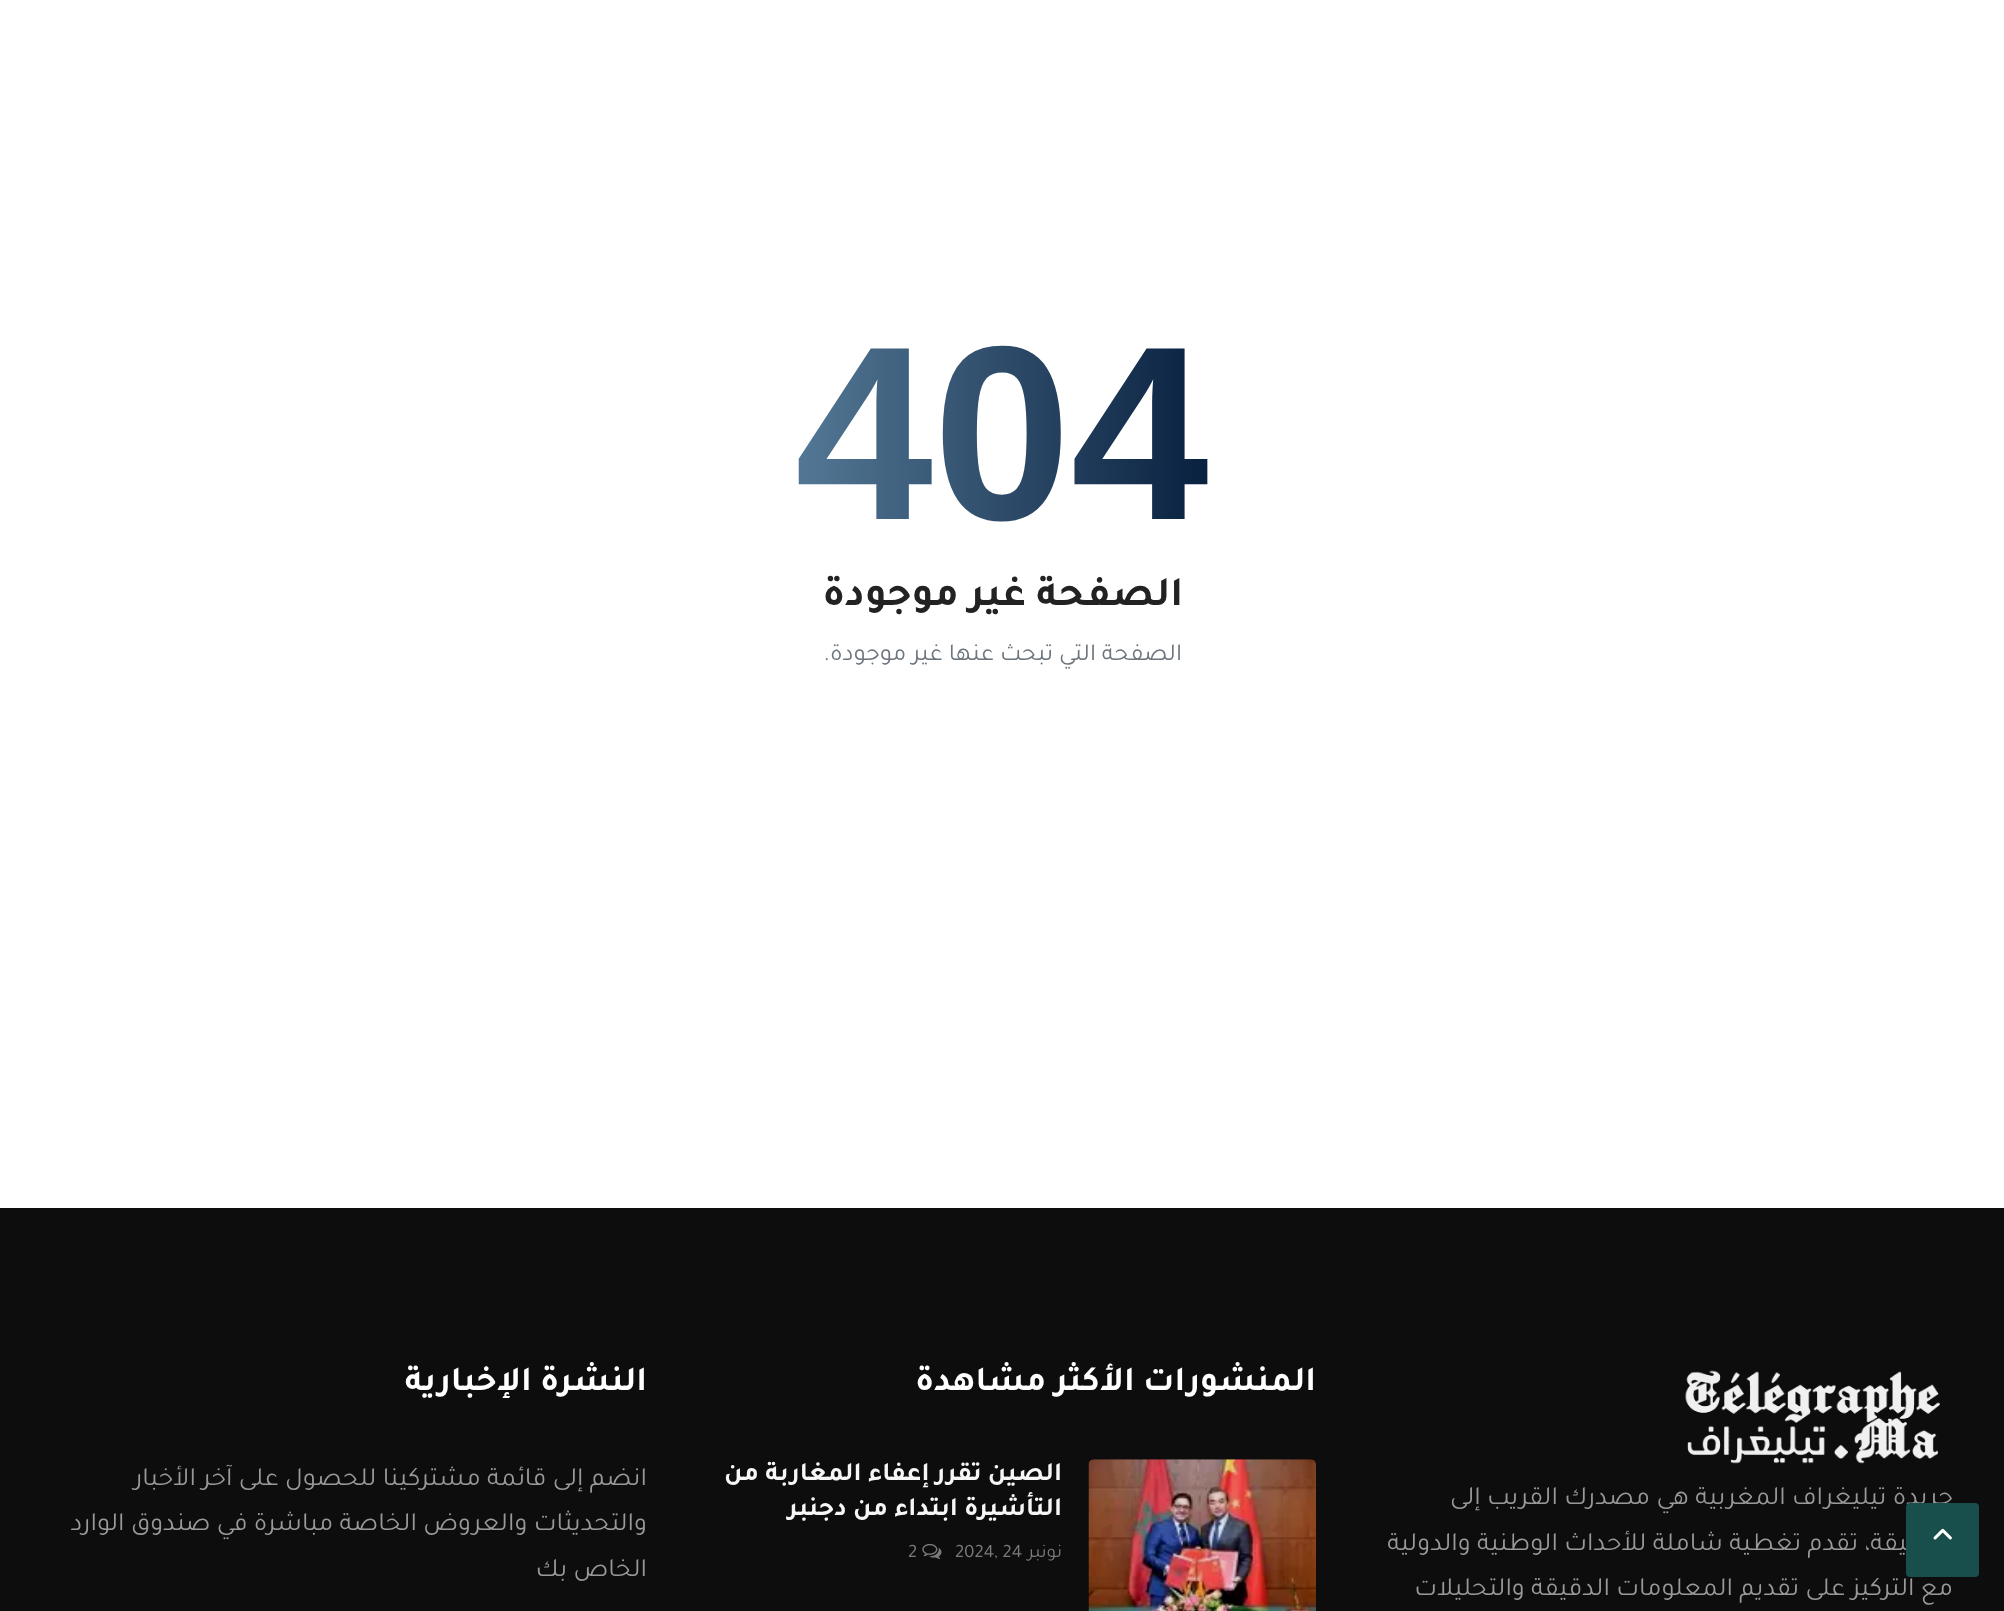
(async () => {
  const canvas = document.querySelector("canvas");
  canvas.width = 2004;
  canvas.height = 1611;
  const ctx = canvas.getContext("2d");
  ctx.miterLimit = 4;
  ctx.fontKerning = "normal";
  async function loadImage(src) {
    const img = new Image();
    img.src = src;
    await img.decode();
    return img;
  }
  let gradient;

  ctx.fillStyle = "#ffffff";
  ctx.fillRect(0, 0, 2004, 1611);
  ctx.fillStyle = "#0d0d0d";
  ctx.fillRect(0, 1208, 2004, 403);
  ctx.drawImage(await loadImage("img/1.png"), 1685, 1370, 255, 94);
  ctx.drawImage(await loadImage("img/2.png"), 1088, 1459, 228, 152);
  ctx.drawImage(await loadImage("img/3.png"), 922, 1543, 20, 16);
  ctx.font = "bold 248px Liberation Sans";
  gradient = ctx.createLinearGradient(795, 433, 1210, 433);
  gradient.addColorStop(0, "#537895");
  gradient.addColorStop(1, "#09203f");
  ctx.fillStyle = gradient;
  ctx.fillText("404", 795, 519);
  ctx.direction = "rtl";
  ctx.font = "bold 42px Tajawal";
  ctx.fillStyle = "#222222";
  ctx.fillText("الصفحة غير موجودة", 1183, 605);
  ctx.font = "24.5px Tajawal";
  ctx.fillStyle = "#6c757d";
  ctx.fillText("الصفحة التي تبحث عنها غير موجودة.", 1182, 660);
  ctx.font = "26.25px Tajawal";
  ctx.fillStyle = "#999999";
  for (const [text, x, y] of [
    ["جريدة تيليغراف المغربية هي مصدرك القريب إلى", 1953, 1504],
    ["الحقيقة، تقدم تغطية شاملة للأحداث الوطنية والدولية", 1953, 1550],
    ["مع التركيز على تقديم المعلومات الدقيقة والتحليلات", 1953, 1595],
  ]) {
    ctx.fillText(text, x, y);
  }
  ctx.font = "bold 35px Tajawal";
  ctx.fillStyle = "#ffffff";
  ctx.fillText("المنشورات الأكثر مشاهدة", 1316, 1390);
  ctx.font = "bold 26.25px Tajawal";
  ctx.fillStyle = "#f6f6f6";
  ctx.fillText("الصين تقرر إعفاء المغاربة من", 1062, 1480);
  ctx.fillText("التأشيرة ابتداء من دجنبر", 1062, 1515);
  ctx.font = "19px Tajawal";
  ctx.fillStyle = "#7a7a7a";
  ctx.fillText("نونبر", 1062, 1557);
  ctx.direction = "ltr";
  ctx.fillText("2024, 24", 955, 1557);
  ctx.fillText("2", 908, 1557);
  ctx.direction = "rtl";
  ctx.font = "bold 35px Tajawal";
  ctx.fillStyle = "#ffffff";
  ctx.fillText("النشرة الإخبارية", 647, 1390);
  ctx.font = "26.25px Tajawal";
  ctx.fillStyle = "#999999";
  for (const [text, x, y] of [
    ["انضم إلى قائمة مشتركينا للحصول على آخر الأخبار", 647, 1485],
    ["والتحديثات والعروض الخاصة مباشرة في صندوق الوارد", 647, 1530],
    ["الخاص بك", 647, 1576],
  ]) {
    ctx.fillText(text, x, y);
  }
  ctx.fillStyle = "#184e4c";
  ctx.beginPath();
  ctx.roundRect(1906, 1503, 73, 74, 4);
  ctx.fill();
  ctx.drawImage(await loadImage("img/4.png"), 1933, 1528, 19, 12);
})();
